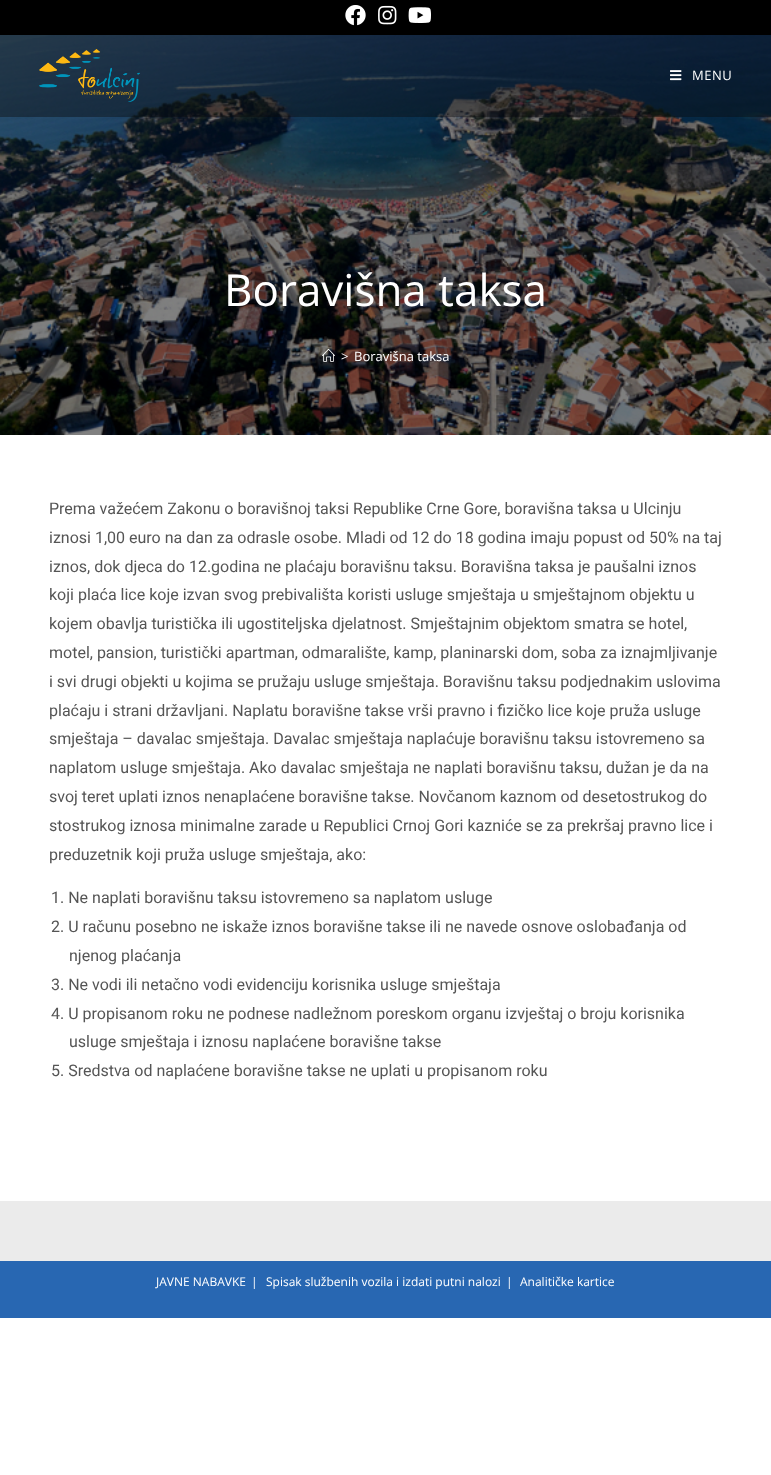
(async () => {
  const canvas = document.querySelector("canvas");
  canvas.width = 771;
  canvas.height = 1475;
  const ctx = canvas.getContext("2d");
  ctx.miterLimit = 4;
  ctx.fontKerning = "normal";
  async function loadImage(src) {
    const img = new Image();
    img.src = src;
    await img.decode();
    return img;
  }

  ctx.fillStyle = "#ffffff";
  ctx.fillRect(0, 0, 771, 1475);
  ctx.fillStyle = "#000000";
  ctx.fillRect(0, 0, 771, 35);
  ctx.drawImage(await loadImage("img/1.png"), 345, 5, 21, 21);
  ctx.drawImage(await loadImage("img/2.png"), 378, 5, 19, 20);
  ctx.drawImage(await loadImage("img/3.png"), 408, 7, 23, 16);
  ctx.drawImage(await loadImage("img/6.png"), 0, 35, 771, 400);
  ctx.fillStyle = "rgba(10, 10, 10, 0.41)";
  ctx.fillRect(0, 35, 771, 82);
  ctx.drawImage(await loadImage("img/4.png"), 39, 49, 101, 53);
  ctx.drawImage(await loadImage("img/5.png"), 670, 70, 12, 11);
  ctx.drawImage(await loadImage("img/7.png"), 322, 348, 13, 14);
  ctx.fillStyle = "#ebebeb";
  ctx.fillRect(0, 1201, 771, 60);
  ctx.fillStyle = "#2867b2";
  ctx.fillRect(0, 1261, 771, 57);
  ctx.letterSpacing = "0.5px";
  ctx.font = "13px Open Sans";
  ctx.fillStyle = "#ffffff";
  ctx.fillText("MENU", 692, 80);
  ctx.letterSpacing = "0px";
  ctx.font = "44px Open Sans";
  ctx.fillText("Boravišna taksa", 224, 306);
  ctx.font = "13px Open Sans";
  ctx.fillText(">", 341, 361);
  ctx.fillText("Boravišna taksa", 354, 361);
  ctx.font = "16px Roboto";
  ctx.fillStyle = "#555555";
  for (const [text, x, y] of [
    ["Prema važećem Zakonu o boravišnoj taksi Republike Crne Gore, boravišna taksa u Ulcinju", 49, 514],
    ["iznosi 1,00 euro na dan za odrasle osobe. Mladi od 12 do 18 godina imaju popust od 50% na taj", 49, 543],
    ["iznos, dok djeca do 12.godina ne plaćaju boravišnu taksu. Boravišna taksa je paušalni iznos", 49, 572],
    ["koji plaća lice koje izvan svog prebivališta koristi usluge smještaja u smještajnom objektu u", 49, 600],
    ["kojem obavlja turistička ili ugostiteljska djelatnost. Smještajnim objektom smatra se hotel,", 49, 629],
    ["motel, pansion, turistički apartman, odmaralište, kamp, planinarski dom, soba za iznajmljivanje", 49, 658],
    ["i svi drugi objekti u kojima se pružaju usluge smještaja. Boravišnu taksu podjednakim uslovima", 49, 687],
    ["plaćaju i strani državljani. Naplatu boravišne takse vrši pravno i fizičko lice koje pruža usluge", 49, 716],
    ["smještaja – davalac smještaja. Davalac smještaja naplaćuje boravišnu taksu istovremeno sa", 49, 744],
    ["naplatom usluge smještaja. Ako davalac smještaja ne naplati boravišnu taksu, dužan je da na", 49, 773],
    ["svoj teret uplati iznos nenaplaćene boravišne takse. Novčanom kaznom od desetostrukog do", 49, 802],
    ["stostrukog iznosa minimalne zarade u Republici Crnoj Gori kazniće se za prekršaj pravno lice i", 49, 831],
    ["preduzetnik koji pruža usluge smještaja, ako:", 49, 860],
    ["1. Ne naplati boravišnu taksu istovremeno sa naplatom usluge", 51, 903],
    ["2. U računu posebno ne iskaže iznos boravišne takse ili ne navede osnove oslobađanja od", 51, 932],
    ["njenog plaćanja", 69, 961],
    ["3. Ne vodi ili netačno vodi evidenciju korisnika usluge smještaja", 51, 990],
    ["4. U propisanom roku ne podnese nadležnom poreskom organu izvještaj o broju korisnika", 51, 1019],
    ["usluge smještaja i iznosu naplaćene boravišne takse", 69, 1047],
    ["5. Sredstva od naplaćene boravišne takse ne uplati u propisanom roku", 51, 1076],
  ]) {
    ctx.fillText(text, x, y);
  }
  ctx.font = "12px Open Sans";
  ctx.fillStyle = "#ffffff";
  for (const [text, x, y] of [
    ["JAVNE NABAVKE", 156, 1286],
    ["|", 251, 1286],
    ["Spisak službenih vozila i izdati putni nalozi", 266, 1286],
    ["|", 506, 1286],
    ["Analitičke kartice", 520, 1286],
  ]) {
    ctx.fillText(text, x, y);
  }
})();
